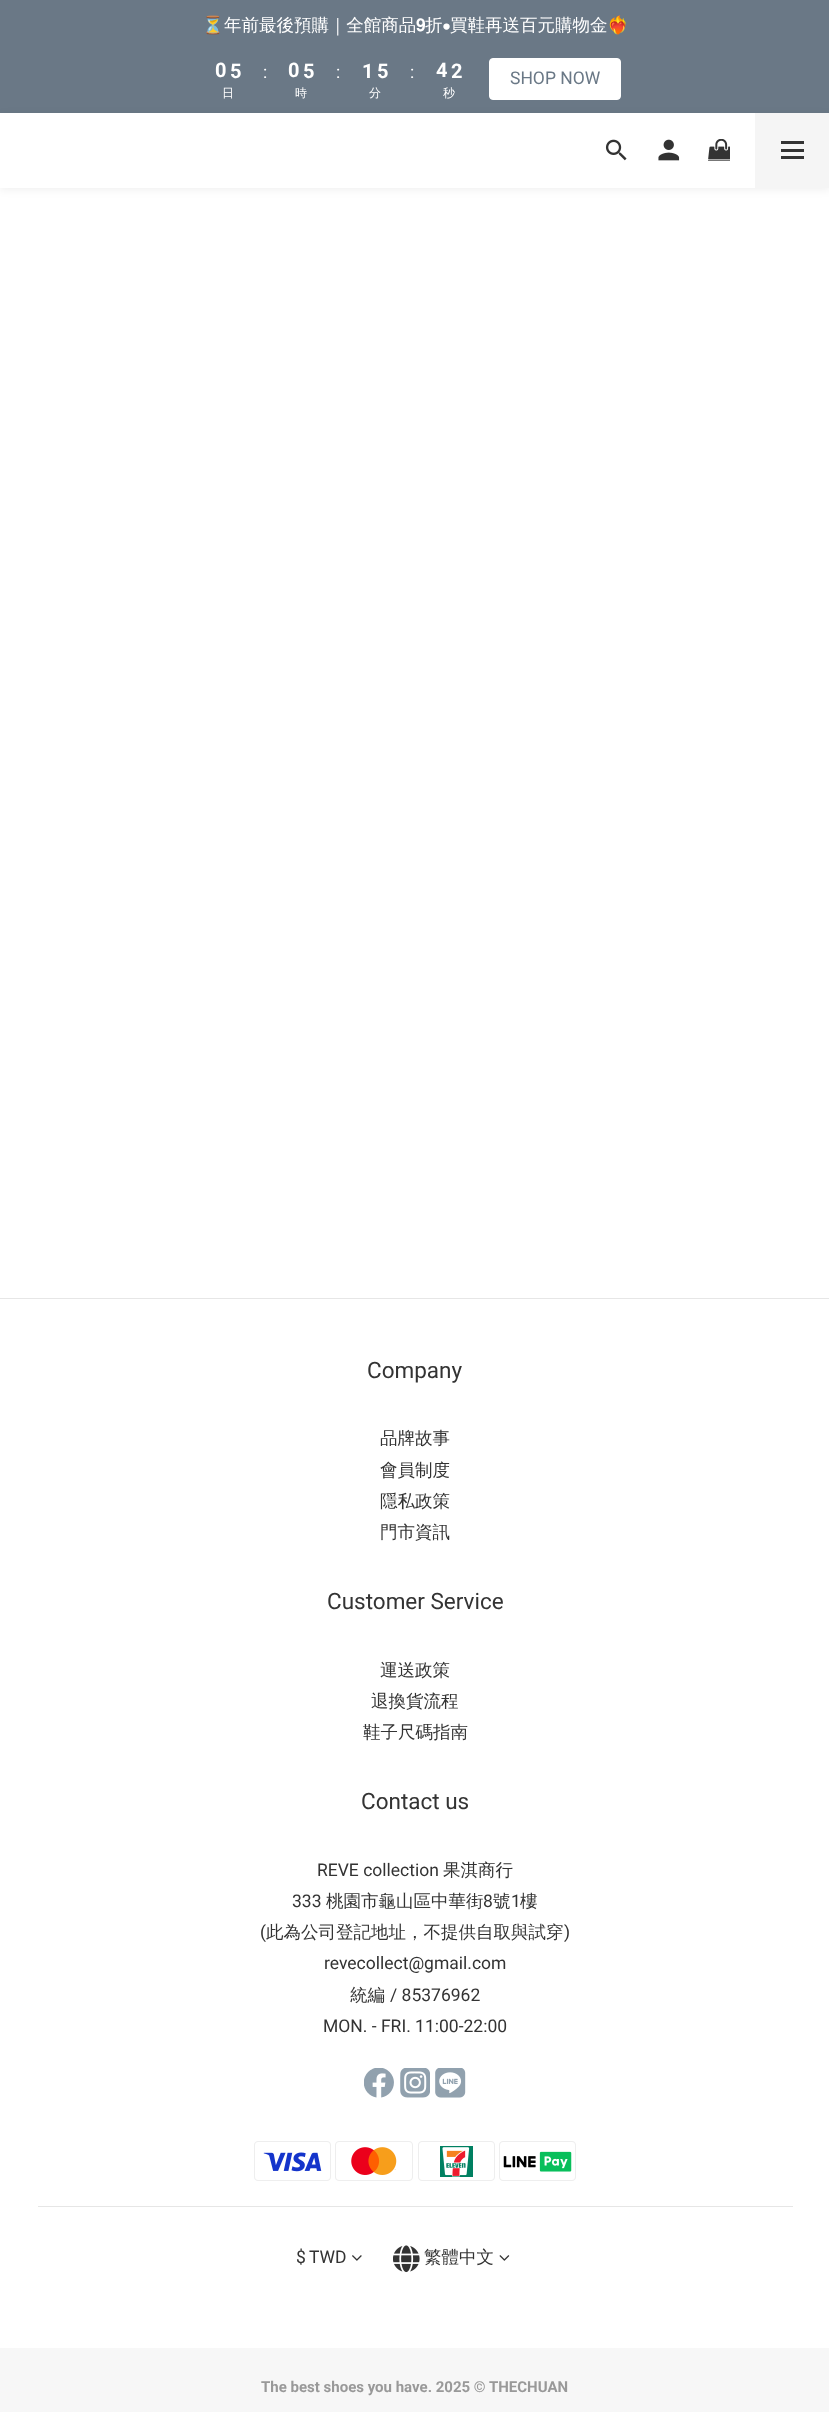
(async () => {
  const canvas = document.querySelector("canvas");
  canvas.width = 829;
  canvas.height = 2412;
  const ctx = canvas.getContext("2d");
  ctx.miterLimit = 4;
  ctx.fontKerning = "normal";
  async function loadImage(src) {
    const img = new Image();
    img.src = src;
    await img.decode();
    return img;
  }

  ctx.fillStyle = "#ffffff";
  ctx.fillRect(0, 0, 829, 2412);
  ctx.fillStyle = "#6a7886";
  ctx.fillRect(0, 0, 829, 113);
  ctx.fillStyle = "#ffffff";
  ctx.beginPath();
  ctx.roundRect(489.5, 58.5, 131, 41, 3.5);
  ctx.fill();
  ctx.strokeStyle = "#ffffff";
  ctx.stroke();
  ctx.fillStyle = "rgba(0, 0, 0, 0.06)";
  ctx.filter = "blur(4px)";
  ctx.beginPath();
  ctx.rect(0, 115, 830, 75);
  ctx.fill();
  ctx.filter = "none";
  ctx.fillStyle = "#ffffff";
  ctx.fillRect(0, 113, 755, 75);
  ctx.drawImage(await loadImage("img/1.png"), 605, 139, 22, 22);
  ctx.drawImage(await loadImage("img/2.png"), 658, 139, 22, 22);
  ctx.drawImage(await loadImage("img/3.png"), 708, 139, 22, 22);
  for (const [x, y, w, h, color] of [
    [755, 113, 74, 75, "#f5f5f5"],
    [781, 149, 23, 3, "#333333"],
    [781, 141, 23, 3, "#333333"],
    [781, 156, 23, 3, "#333333"],
    [0, 1298, 829, 1, "#e6e6e6"],
  ]) {
    ctx.fillStyle = color;
    ctx.fillRect(x, y, w, h);
  }
  ctx.drawImage(await loadImage("img/4.png"), 364, 2068, 30, 30);
  ctx.drawImage(await loadImage("img/5.png"), 400, 2068, 30, 30);
  ctx.drawImage(await loadImage("img/6.png"), 435, 2068, 31, 30);
  ctx.drawImage(await loadImage("img/7.png"), 254, 2141, 77, 40);
  ctx.drawImage(await loadImage("img/8.png"), 335, 2141, 78, 40);
  ctx.drawImage(await loadImage("img/9.png"), 418, 2141, 77, 40);
  ctx.drawImage(await loadImage("img/10.png"), 499, 2141, 77, 40);
  ctx.fillRect(38, 2206, 755, 1);
  ctx.drawImage(await loadImage("img/11.png"), 352, 2255, 10, 6);
  ctx.drawImage(await loadImage("img/12.png"), 393, 2245, 27, 28);
  ctx.drawImage(await loadImage("img/13.png"), 499, 2255, 11, 6);
  ctx.fillStyle = "#f7f7f7";
  ctx.fillRect(0, 2348, 829, 64);
  ctx.font = "17.5px Noto Color Emoji";
  ctx.fillStyle = "#ffffff";
  ctx.fillText("⏳", 202, 31);
  ctx.font = "500 17.5px WenQuanYi Zen Hei";
  ctx.fillText("年前最後預購｜全館商品", 224, 31);
  ctx.font = "17.5px FreeSans";
  ctx.fillText("𝟗", 416, 31);
  ctx.font = "500 17.5px WenQuanYi Zen Hei";
  ctx.fillText("折", 425, 31);
  ctx.font = "17.5px FreeSans";
  ctx.fillText("•", 443, 31);
  ctx.font = "500 17.5px WenQuanYi Zen Hei";
  ctx.fillText("買鞋再送百元購物金", 450, 31);
  ctx.font = "17.5px Noto Color Emoji";
  ctx.fillText("❤️‍🔥", 607, 31);
  ctx.font = "bold 20px Roboto";
  ctx.fillText("0", 215, 77);
  ctx.fillText("5", 230, 78);
  ctx.font = "500 12px WenQuanYi Zen Hei";
  ctx.fillText("日", 222, 97);
  ctx.font = "17.5px Roboto";
  ctx.fillText(":", 263, 78);
  ctx.font = "bold 20px Roboto";
  ctx.fillText("0", 288, 77);
  ctx.fillText("5", 303, 78);
  ctx.font = "500 12px WenQuanYi Zen Hei";
  ctx.fillText("時", 295, 97);
  ctx.font = "17.5px Roboto";
  ctx.fillText(":", 336, 78);
  ctx.font = "bold 20px Roboto";
  ctx.fillText("1", 362, 78);
  ctx.fillText("5", 377, 78);
  ctx.font = "500 12px WenQuanYi Zen Hei";
  ctx.fillText("分", 369, 97);
  ctx.font = "17.5px Roboto";
  ctx.fillText(":", 410, 78);
  ctx.font = "bold 20px Roboto";
  ctx.fillText("4", 436, 77);
  ctx.fillText("2", 451, 78);
  ctx.font = "500 12px WenQuanYi Zen Hei";
  ctx.fillText("秒", 443, 97);
  ctx.font = "17.5px Roboto";
  ctx.fillStyle = "#6a7886";
  ctx.fillText("SHOP NOW", 510, 84);
  ctx.font = "22.5px Roboto";
  ctx.fillStyle = "#333333";
  ctx.fillText("Company", 367, 1378);
  ctx.font = "500 17.5px WenQuanYi Zen Hei";
  for (const [text, x, y] of [
    ["品牌故事", 380, 1444],
    ["會員制度", 380, 1476],
    ["隱私政策", 380, 1507],
    ["門市資訊", 380, 1538],
  ]) {
    ctx.fillText(text, x, y);
  }
  ctx.font = "22.5px Roboto";
  ctx.fillText("Customer Service", 327, 1609);
  ctx.font = "500 17.5px WenQuanYi Zen Hei";
  for (const [text, x, y] of [
    ["運送政策", 380, 1676],
    ["退換貨流程", 371, 1707],
    ["鞋子尺碼指南", 363, 1738],
  ]) {
    ctx.fillText(text, x, y);
  }
  ctx.font = "22.5px Roboto";
  ctx.fillText("Contact us", 361, 1809);
  ctx.font = "17.5px Roboto";
  ctx.fillText("REVE collection", 317, 1876);
  ctx.font = "500 17.5px WenQuanYi Zen Hei";
  ctx.fillText("果淇商行", 443, 1876);
  ctx.font = "17.5px Roboto";
  ctx.fillText("333", 292, 1907);
  ctx.font = "500 17.5px WenQuanYi Zen Hei";
  ctx.fillText("桃園市龜山區中華街", 326, 1907);
  ctx.font = "17.5px Roboto";
  ctx.fillText("8", 483, 1907);
  ctx.font = "500 17.5px WenQuanYi Zen Hei";
  ctx.fillText("號", 493, 1907);
  ctx.font = "17.5px Roboto";
  ctx.fillText("1", 511, 1907);
  ctx.font = "500 17.5px WenQuanYi Zen Hei";
  ctx.fillText("樓", 520, 1907);
  ctx.font = "17.5px Roboto";
  ctx.fillText("(", 260, 1938);
  ctx.font = "500 17.5px WenQuanYi Zen Hei";
  ctx.fillText("此為公司登記地址，不提供自取與試穿", 266, 1938);
  ctx.font = "17.5px Roboto";
  ctx.fillText(")", 564, 1938);
  ctx.fillText("revecollect@gmail.com", 324, 1969);
  ctx.font = "500 17.5px WenQuanYi Zen Hei";
  ctx.fillText("統編", 350, 2001);
  ctx.font = "17.5px Roboto";
  for (const [text, x, y] of [
    ["/ 85376962", 390, 2001],
    ["MON. - FRI. 11:00-22:00", 323, 2032],
    ["$", 296, 2263],
    ["TWD", 309, 2263],
  ]) {
    ctx.fillText(text, x, y);
  }
  ctx.font = "500 17.5px WenQuanYi Zen Hei";
  ctx.fillText("繁體中文", 424, 2263);
  ctx.font = "bold 15px Roboto";
  ctx.fillStyle = "#999999";
  ctx.fillText("The best shoes you have. 2025 © THECHUAN", 261, 2392);
})();
